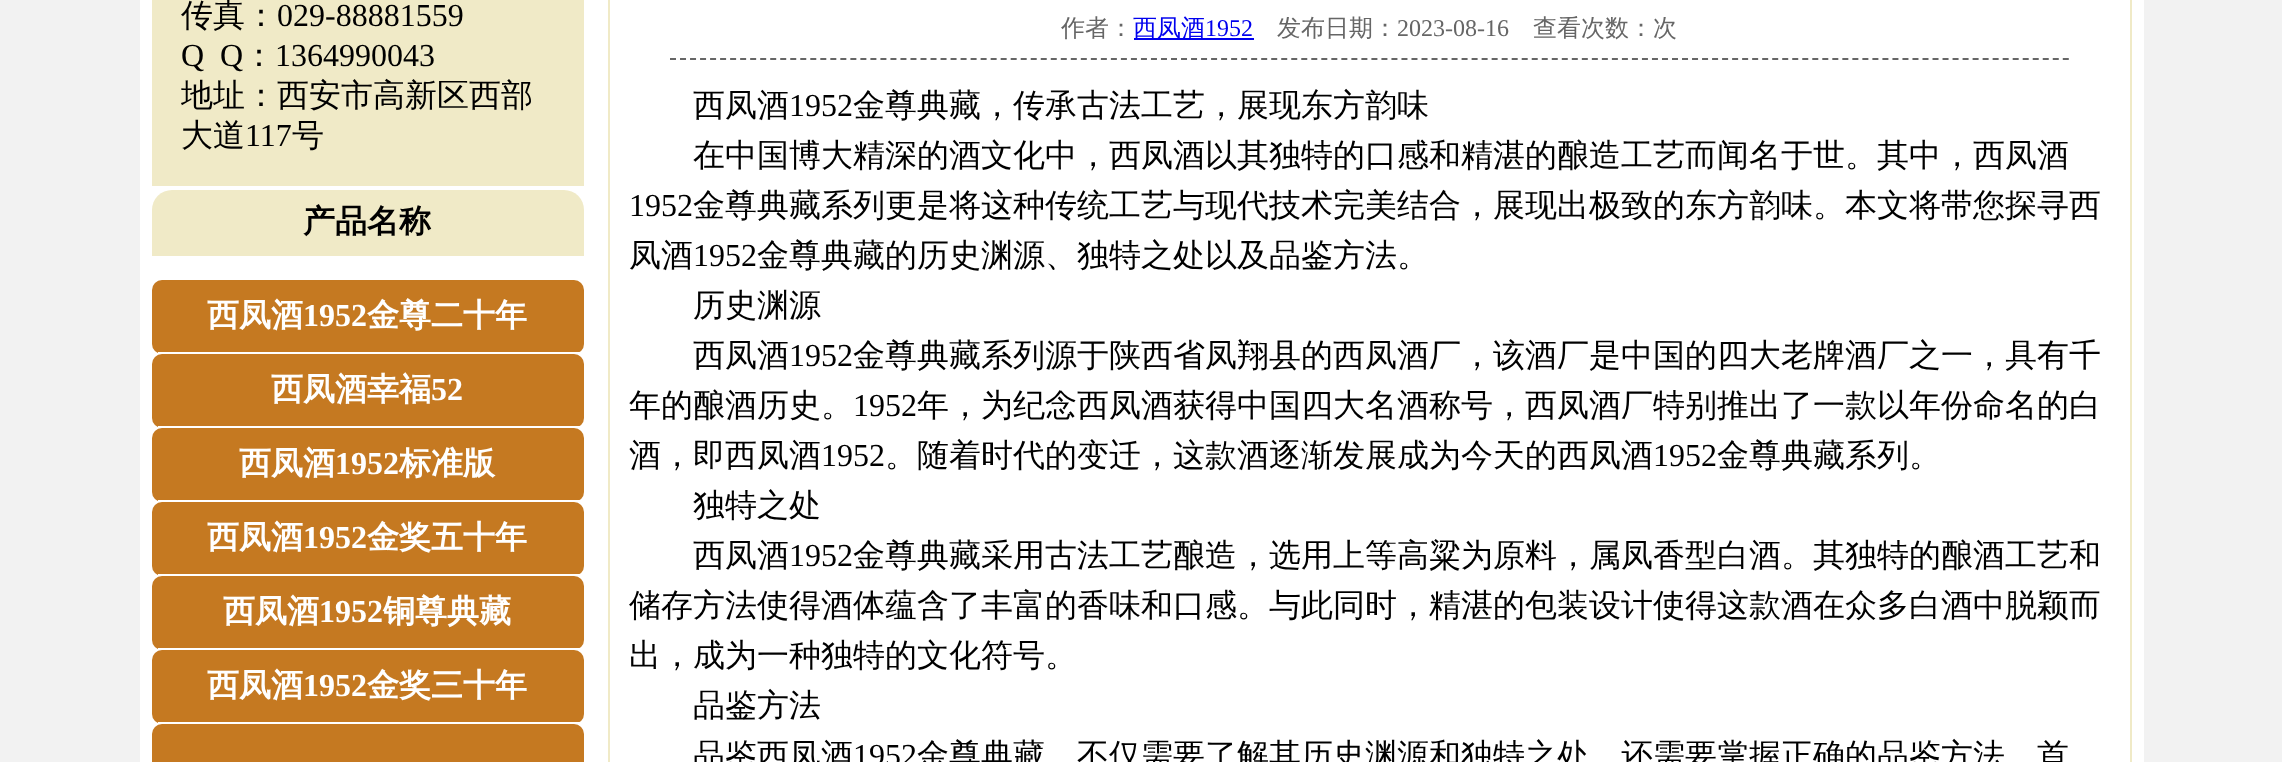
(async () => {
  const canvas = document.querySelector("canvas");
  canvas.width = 2282;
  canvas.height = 762;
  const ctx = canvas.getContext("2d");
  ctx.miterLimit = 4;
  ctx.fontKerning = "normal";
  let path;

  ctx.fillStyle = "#f2f2f2";
  ctx.fillRect(0, 0, 2282, 762);
  ctx.fillStyle = "#ffffff";
  ctx.fillRect(140, 0, 2004, 762);
  ctx.fillStyle = "#f0eac7";
  ctx.fillRect(152, 0, 432, 186);
  ctx.beginPath();
  ctx.roundRect(152, 190, 432, 90, [20, 20, 0, 0]);
  ctx.fill();
  ctx.fillStyle = "#ffffff";
  ctx.fillRect(152, 256, 432, 24);
  ctx.fillStyle = "#c57921";
  ctx.beginPath();
  ctx.roundRect(152, 280, 432, 74, 10);
  ctx.fill();
  ctx.fillStyle = "#ffffff";
  ctx.fillRect(158, 352, 422, 2);
  ctx.fillStyle = "#c57921";
  ctx.beginPath();
  ctx.roundRect(152, 354, 432, 74, 10);
  ctx.fill();
  ctx.fillStyle = "#ffffff";
  ctx.fillRect(158, 426, 422, 2);
  ctx.fillStyle = "#c57921";
  ctx.beginPath();
  ctx.roundRect(152, 428, 432, 74, 10);
  ctx.fill();
  ctx.fillStyle = "#ffffff";
  ctx.fillRect(158, 500, 422, 2);
  ctx.fillStyle = "#c57921";
  ctx.beginPath();
  ctx.roundRect(152, 502, 432, 74, 10);
  ctx.fill();
  ctx.fillStyle = "#ffffff";
  ctx.fillRect(158, 574, 422, 2);
  ctx.fillStyle = "#c57921";
  ctx.beginPath();
  ctx.roundRect(152, 576, 432, 74, 10);
  ctx.fill();
  ctx.fillStyle = "#ffffff";
  ctx.fillRect(158, 648, 422, 2);
  ctx.fillStyle = "#c57921";
  ctx.beginPath();
  ctx.roundRect(152, 650, 432, 74, 10);
  ctx.fill();
  ctx.fillStyle = "#ffffff";
  ctx.fillRect(158, 722, 422, 2);
  ctx.fillStyle = "#c57921";
  ctx.beginPath();
  ctx.roundRect(152, 724, 432, 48, 10);
  ctx.fill();
  ctx.strokeStyle = "#f0eac7";
  ctx.lineWidth = 2;
  ctx.strokeRect(609, -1, 1522, 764);
  path = new Path2D("M670 59H2070");
  ctx.strokeStyle = "#666666";
  ctx.setLineDash([6, 4.02]);
  ctx.stroke(path);
  ctx.fillStyle = "#0000ee";
  ctx.fillRect(1134, 38, 120, 2);
  ctx.font = "500 32px WenQuanYi Zen Hei";
  ctx.fillStyle = "#000000";
  ctx.fillText("传真：", 181, 26);
  ctx.font = "32px Liberation Serif";
  ctx.fillText("029-88881559", 277, 26);
  ctx.fillText("Q  Q", 181, 66);
  ctx.font = "500 32px WenQuanYi Zen Hei";
  ctx.fillText("：", 243, 66);
  ctx.font = "32px Liberation Serif";
  ctx.fillText("1364990043", 275, 66);
  ctx.font = "500 32px WenQuanYi Zen Hei";
  ctx.fillText("地址：西安市高新区西部", 181, 106);
  ctx.fillText("大道", 181, 146);
  ctx.font = "32px Liberation Serif";
  ctx.fillText("117", 245, 146);
  ctx.font = "500 32px WenQuanYi Zen Hei";
  ctx.fillText("号", 292, 146);
  ctx.font = "bold 32px WenQuanYi Zen Hei";
  ctx.fillText("产品名称", 303, 232);
  ctx.fillStyle = "#ffffff";
  ctx.fillText("西凤酒", 207, 326);
  ctx.font = "bold 32px Liberation Serif";
  ctx.fillText("1952", 303, 326);
  ctx.font = "bold 32px WenQuanYi Zen Hei";
  ctx.fillText("金尊二十年", 367, 326);
  ctx.fillText("西凤酒幸福", 271, 400);
  ctx.font = "bold 32px Liberation Serif";
  ctx.fillText("52", 431, 400);
  ctx.font = "bold 32px WenQuanYi Zen Hei";
  ctx.fillText("西凤酒", 239, 474);
  ctx.font = "bold 32px Liberation Serif";
  ctx.fillText("1952", 335, 474);
  ctx.font = "bold 32px WenQuanYi Zen Hei";
  ctx.fillText("标准版", 399, 474);
  ctx.fillText("西凤酒", 207, 548);
  ctx.font = "bold 32px Liberation Serif";
  ctx.fillText("1952", 303, 548);
  ctx.font = "bold 32px WenQuanYi Zen Hei";
  ctx.fillText("金奖五十年", 367, 548);
  ctx.fillText("西凤酒", 223, 622);
  ctx.font = "bold 32px Liberation Serif";
  ctx.fillText("1952", 319, 622);
  ctx.font = "bold 32px WenQuanYi Zen Hei";
  ctx.fillText("铜尊典藏", 383, 622);
  ctx.fillText("西凤酒", 207, 696);
  ctx.font = "bold 32px Liberation Serif";
  ctx.fillText("1952", 303, 696);
  ctx.font = "bold 32px WenQuanYi Zen Hei";
  ctx.fillText("金奖三十年", 367, 696);
  ctx.font = "500 24px WenQuanYi Zen Hei";
  ctx.fillStyle = "#666666";
  ctx.fillText("作者：", 1061, 36);
  ctx.fillStyle = "#0000ee";
  ctx.fillText("西凤酒", 1133, 36);
  ctx.font = "24px Liberation Serif";
  ctx.fillText("1952", 1205, 36);
  ctx.font = "500 24px WenQuanYi Zen Hei";
  ctx.fillStyle = "#666666";
  ctx.fillText("发布日期：", 1277, 36);
  ctx.font = "24px Liberation Serif";
  ctx.fillText("2023-08-16", 1397, 36);
  ctx.font = "500 24px WenQuanYi Zen Hei";
  ctx.fillText("查看次数：次", 1533, 36);
  ctx.font = "500 32px WenQuanYi Zen Hei";
  ctx.fillStyle = "#000000";
  ctx.fillText("西凤酒", 693, 116);
  ctx.font = "32px Liberation Serif";
  ctx.fillText("1952", 789, 116);
  ctx.font = "500 32px WenQuanYi Zen Hei";
  ctx.fillText("金尊典藏，传承古法工艺，展现东方韵味", 853, 116);
  ctx.fillText("在中国博大精深的酒文化中，西凤酒以其独特的口感和精湛的酿造工艺而闻名于世。其中，西凤酒", 693, 166);
  ctx.font = "32px Liberation Serif";
  ctx.fillText("1952", 629, 216);
  ctx.font = "500 32px WenQuanYi Zen Hei";
  ctx.fillText("金尊典藏系列更是将这种传统工艺与现代技术完美结合，展现出极致的东方韵味。本文将带您探寻西", 693, 216);
  ctx.fillText("凤酒", 629, 266);
  ctx.font = "32px Liberation Serif";
  ctx.fillText("1952", 693, 266);
  ctx.font = "500 32px WenQuanYi Zen Hei";
  for (const [text, x, y] of [
    ["金尊典藏的历史渊源、独特之处以及品鉴方法。", 757, 266],
    ["历史渊源", 693, 316],
    ["西凤酒", 693, 366],
  ]) {
    ctx.fillText(text, x, y);
  }
  ctx.font = "32px Liberation Serif";
  ctx.fillText("1952", 789, 366);
  ctx.font = "500 32px WenQuanYi Zen Hei";
  ctx.fillText("金尊典藏系列源于陕西省凤翔县的西凤酒厂，该酒厂是中国的四大老牌酒厂之一，具有千", 853, 366);
  ctx.fillText("年的酿酒历史。", 629, 416);
  ctx.font = "32px Liberation Serif";
  ctx.fillText("1952", 853, 416);
  ctx.font = "500 32px WenQuanYi Zen Hei";
  ctx.fillText("年，为纪念西凤酒获得中国四大名酒称号，西凤酒厂特别推出了一款以年份命名的白", 917, 416);
  ctx.fillText("酒，即西凤酒", 629, 466);
  ctx.font = "32px Liberation Serif";
  ctx.fillText("1952", 821, 466);
  ctx.font = "500 32px WenQuanYi Zen Hei";
  ctx.fillText("。随着时代的变迁，这款酒逐渐发展成为今天的西凤酒", 885, 466);
  ctx.font = "32px Liberation Serif";
  ctx.fillText("1952", 1653, 466);
  ctx.font = "500 32px WenQuanYi Zen Hei";
  for (const [text, x, y] of [
    ["金尊典藏系列。", 1717, 466],
    ["独特之处", 693, 516],
    ["西凤酒", 693, 566],
  ]) {
    ctx.fillText(text, x, y);
  }
  ctx.font = "32px Liberation Serif";
  ctx.fillText("1952", 789, 566);
  ctx.font = "500 32px WenQuanYi Zen Hei";
  for (const [text, x, y] of [
    ["金尊典藏采用古法工艺酿造，选用上等高粱为原料，属凤香型白酒。其独特的酿酒工艺和", 853, 566],
    ["储存方法使得酒体蕴含了丰富的香味和口感。与此同时，精湛的包装设计使得这款酒在众多白酒中脱颖而", 629, 616],
    ["出，成为一种独特的文化符号。", 629, 666],
    ["品鉴方法", 693, 716],
    ["品鉴西凤酒", 693, 766],
  ]) {
    ctx.fillText(text, x, y);
  }
  ctx.font = "32px Liberation Serif";
  ctx.fillText("1952", 853, 766);
  ctx.font = "500 32px WenQuanYi Zen Hei";
  ctx.fillText("金尊典藏，不仅需要了解其历史渊源和独特之处，还需要掌握正确的品鉴方法。首", 917, 766);
})();
